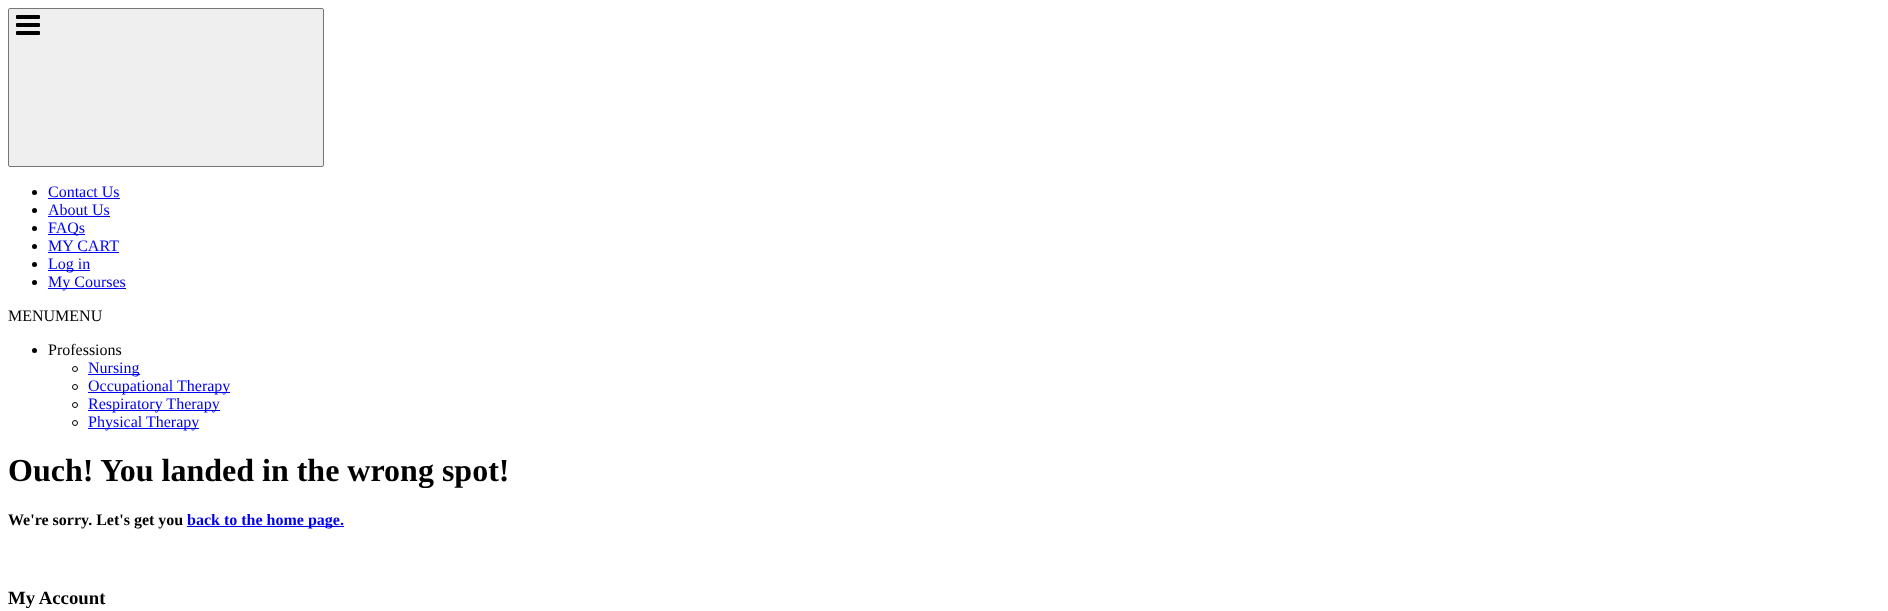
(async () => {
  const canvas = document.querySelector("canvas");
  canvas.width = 1888;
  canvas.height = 611;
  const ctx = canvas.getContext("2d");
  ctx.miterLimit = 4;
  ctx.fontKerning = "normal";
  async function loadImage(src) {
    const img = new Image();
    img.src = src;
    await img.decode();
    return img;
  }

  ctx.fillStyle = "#ffffff";
  ctx.fillRect(0, 0, 1888, 611);
  ctx.fillStyle = "#efefef";
  ctx.beginPath();
  ctx.roundRect(8.5, 8.5, 315, 158, 1.5);
  ctx.fill();
  ctx.strokeStyle = "#767676";
  ctx.stroke();
  ctx.drawImage(await loadImage("img/1.png"), 16, 15, 24, 20);
  ctx.fillStyle = "#000000";
  ctx.beginPath();
  ctx.arc(34.5, 192.5, 2.5, 0, Math.PI * 2);
  ctx.fill();
  ctx.fillStyle = "#0000ee";
  ctx.fillRect(48, 198, 72, 1);
  ctx.fillStyle = "#000000";
  ctx.beginPath();
  ctx.arc(34.5, 210.5, 2.5, 0, Math.PI * 2);
  ctx.fill();
  ctx.fillStyle = "#0000ee";
  ctx.fillRect(48, 216, 62, 1);
  ctx.fillStyle = "#000000";
  ctx.beginPath();
  ctx.arc(34.5, 228.5, 2.5, 0, Math.PI * 2);
  ctx.fill();
  ctx.fillStyle = "#0000ee";
  ctx.fillRect(48, 234, 37, 1);
  ctx.fillStyle = "#000000";
  ctx.beginPath();
  ctx.arc(34.5, 246.5, 2.5, 0, Math.PI * 2);
  ctx.fill();
  ctx.fillStyle = "#0000ee";
  ctx.fillRect(48, 252, 71, 1);
  ctx.fillStyle = "#000000";
  ctx.beginPath();
  ctx.arc(34.5, 264.5, 2.5, 0, Math.PI * 2);
  ctx.fill();
  ctx.fillStyle = "#0000ee";
  ctx.fillRect(48, 270, 42, 1);
  ctx.fillStyle = "#000000";
  ctx.beginPath();
  ctx.arc(34.5, 282.5, 2.5, 0, Math.PI * 2);
  ctx.fill();
  ctx.fillStyle = "#0000ee";
  ctx.fillRect(48, 288, 78, 1);
  ctx.fillStyle = "#000000";
  ctx.beginPath();
  ctx.arc(34.5, 350.5, 2.5, 0, Math.PI * 2);
  ctx.fill();
  ctx.beginPath();
  ctx.arc(75, 369, 2.5, 0, Math.PI * 2);
  ctx.strokeStyle = "#000000";
  ctx.stroke();
  ctx.fillStyle = "#0000ee";
  ctx.fillRect(88, 374, 52, 1);
  ctx.beginPath();
  ctx.arc(75, 387, 2.5, 0, Math.PI * 2);
  ctx.stroke();
  ctx.fillRect(88, 392, 142, 1);
  ctx.beginPath();
  ctx.arc(75, 405, 2.5, 0, Math.PI * 2);
  ctx.stroke();
  ctx.fillRect(88, 410, 132, 1);
  ctx.beginPath();
  ctx.arc(75, 423, 2.5, 0, Math.PI * 2);
  ctx.stroke();
  ctx.fillRect(88, 428, 111, 1);
  ctx.fillRect(187, 526, 157, 1);
  ctx.font = "16px Liberation Serif";
  for (const [text, x, y] of [
    ["Contact Us", 48, 197],
    ["About Us", 48, 215],
    ["FAQs", 48, 233],
    ["MY CART", 48, 251],
    ["Log in", 48, 269],
    ["My Courses", 48, 287],
  ]) {
    ctx.fillText(text, x, y);
  }
  ctx.fillStyle = "#000000";
  ctx.fillText("MENUMENU", 8, 321);
  ctx.fillText("Professions", 48, 355);
  ctx.fillStyle = "#0000ee";
  for (const [text, x, y] of [
    ["Nursing", 88, 373],
    ["Occupational Therapy", 88, 391],
    ["Respiratory Therapy", 88, 409],
    ["Physical Therapy", 88, 427],
  ]) {
    ctx.fillText(text, x, y);
  }
  ctx.font = "bold 32px Liberation Serif";
  ctx.fillStyle = "#000000";
  ctx.fillText("Ouch! You landed in the wrong spot!", 8, 481);
  ctx.font = "bold 16px Liberation Serif";
  ctx.fillText("We're sorry. Let's get you", 8, 525);
  ctx.fillStyle = "#0000ee";
  ctx.fillText("back to the home page.", 187, 525);
  ctx.font = "bold 18.75px Liberation Serif";
  ctx.fillStyle = "#000000";
  ctx.fillText("My Account", 8, 604);
})();
